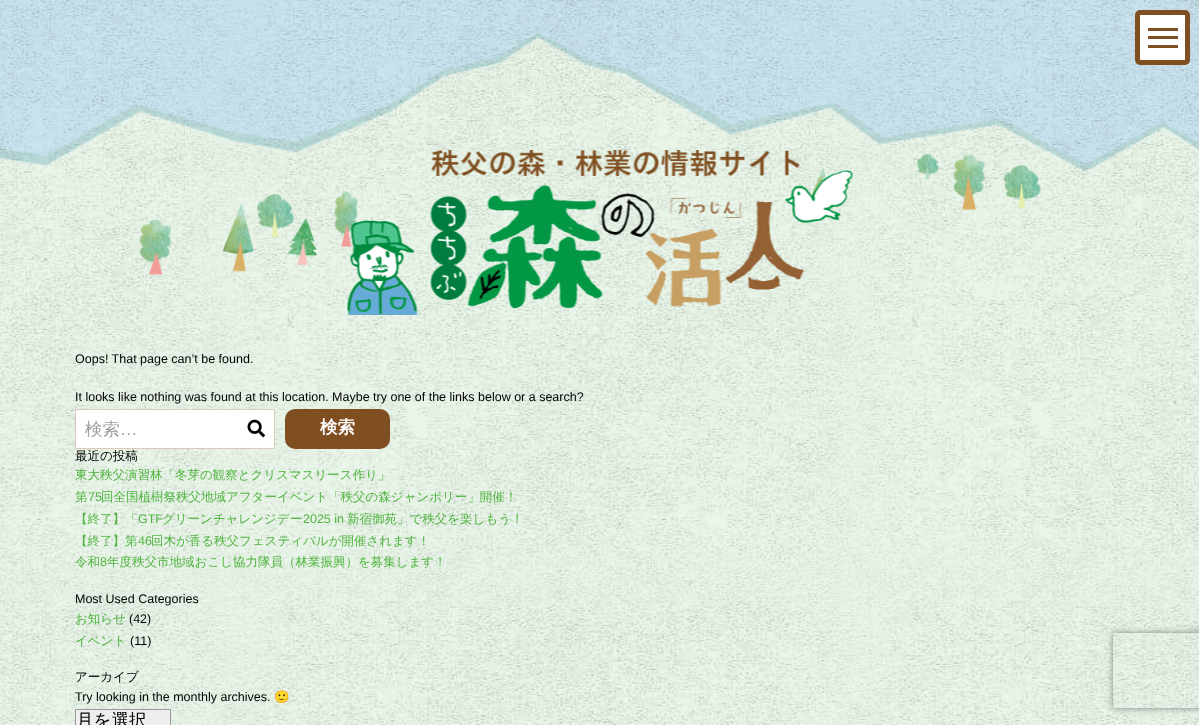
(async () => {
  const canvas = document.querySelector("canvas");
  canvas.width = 1199;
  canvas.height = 725;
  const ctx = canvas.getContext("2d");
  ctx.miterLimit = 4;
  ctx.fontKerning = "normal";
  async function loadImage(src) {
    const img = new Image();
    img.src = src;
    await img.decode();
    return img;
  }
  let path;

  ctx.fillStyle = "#e9f6e9";
  ctx.fillRect(0, 0, 1199, 725);
  ctx.drawImage(await loadImage("img/1.png"), 0, 0, 1199, 725);
  ctx.fillStyle = "#ffffff";
  ctx.beginPath();
  ctx.roundRect(1137.5, 12.5, 50, 50, 2.5);
  ctx.fill();
  ctx.strokeStyle = "#804f21";
  ctx.lineWidth = 5;
  ctx.stroke();
  for (const [x, y, w, h, color] of [
    [1148, 36, 30, 3, "#804f21"],
    [1148, 28, 30, 3, "#804f21"],
    [1148, 45, 30, 3, "#804f21"],
  ]) {
    ctx.fillStyle = color;
    ctx.fillRect(x, y, w, h);
  }
  ctx.drawImage(await loadImage("img/2.png"), 139, 154, 902, 121);
  ctx.drawImage(await loadImage("img/3.png"), 347, 150, 506, 165);
  ctx.fillStyle = "#ffffff";
  ctx.beginPath();
  ctx.rect(75.5, 409.5, 199, 39);
  ctx.fill();
  ctx.strokeStyle = "#d9cabc";
  ctx.lineWidth = 1;
  ctx.stroke();
  ctx.drawImage(await loadImage("img/4.png"), 247, 419, 18, 19);
  ctx.fillStyle = "#804f21";
  ctx.beginPath();
  ctx.roundRect(285, 409, 105, 40, 10);
  ctx.fill();
  ctx.fillStyle = "#eeeeee";
  ctx.beginPath();
  ctx.rect(75.5, 709.5, 95, 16);
  ctx.fill();
  ctx.strokeStyle = "#999999";
  ctx.stroke();
  ctx.save();
  path = new Path2D("M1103 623H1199V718H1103ZM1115.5 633H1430.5C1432 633 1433 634 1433 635.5V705.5C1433 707 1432 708 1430.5 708H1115.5C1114 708 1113 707 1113 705.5V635.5C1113 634 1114 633 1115.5 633Z");
  ctx.clip(path, "evenodd");
  ctx.fillStyle = "#808080";
  ctx.filter = "blur(3px)";
  ctx.beginPath();
  ctx.roundRect(1113, 633, 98, 75, 2.5);
  ctx.fill();
  ctx.filter = "none";
  ctx.restore();
  ctx.font = "12.5px Liberation Sans";
  ctx.fillStyle = "#000000";
  ctx.fillText("Oops! That page can’t be found.", 75, 363);
  ctx.fillText("It looks like nothing was found at this location. Maybe try one of the links below or a search?", 75, 401);
  ctx.font = "500 17.5px WenQuanYi Zen Hei";
  ctx.fillStyle = "#9e9e9e";
  ctx.fillText("検索", 85, 435);
  ctx.font = "17.5px Liberation Sans";
  ctx.fillText("…", 120, 435);
  ctx.font = "bold 17.5px WenQuanYi Zen Hei";
  ctx.fillStyle = "#ffffff";
  ctx.fillText("検索", 320, 433);
  ctx.font = "500 12.5px WenQuanYi Zen Hei";
  ctx.fillStyle = "#000000";
  ctx.fillText("最近の投稿", 75, 460);
  ctx.fillStyle = "#50b43f";
  ctx.fillText("東大秩父演習林「冬芽の観察とクリスマスリース作り」", 75, 479);
  ctx.fillText("第", 75, 501);
  ctx.font = "12.5px Liberation Sans";
  ctx.fillText("75", 88, 501);
  ctx.font = "500 12.5px WenQuanYi Zen Hei";
  ctx.fillText("回全国植樹祭秩父地域アフターイベント「秩父の森ジャンボリー」開催！", 101, 501);
  ctx.fillText("【終了】「", 75, 523);
  ctx.font = "12.5px Liberation Sans";
  ctx.fillText("GTF", 138, 523);
  ctx.font = "500 12.5px WenQuanYi Zen Hei";
  ctx.fillText("グリーンチャレンジデー", 162, 523);
  ctx.font = "12.5px Liberation Sans";
  ctx.fillText("2025 in", 303, 523);
  ctx.font = "500 12.5px WenQuanYi Zen Hei";
  ctx.fillText("新宿御苑」で秩父を楽しもう！", 347, 523);
  ctx.fillText("【終了】第", 75, 545);
  ctx.font = "12.5px Liberation Sans";
  ctx.fillText("46", 138, 545);
  ctx.font = "500 12.5px WenQuanYi Zen Hei";
  ctx.fillText("回木が香る秩父フェスティバルが開催されます！", 151, 545);
  ctx.fillText("令和", 75, 566);
  ctx.font = "12.5px Liberation Sans";
  ctx.fillText("8", 100, 566);
  ctx.font = "500 12.5px WenQuanYi Zen Hei";
  ctx.fillText("年度秩父市地域おこし協力隊員（林業振興）を募集します！", 107, 566);
  ctx.font = "12.5px Liberation Sans";
  ctx.fillStyle = "#000000";
  ctx.fillText("Most Used Categories", 75, 603);
  ctx.font = "500 12.5px WenQuanYi Zen Hei";
  ctx.fillStyle = "#50b43f";
  ctx.fillText("お知らせ", 75, 623);
  ctx.font = "12.5px Liberation Sans";
  ctx.fillStyle = "#000000";
  ctx.fillText("(42)", 129, 623);
  ctx.font = "500 12.5px WenQuanYi Zen Hei";
  ctx.fillStyle = "#50b43f";
  ctx.fillText("イベント", 75, 645);
  ctx.font = "12.5px Liberation Sans";
  ctx.fillStyle = "#000000";
  ctx.fillText("(11)", 130, 645);
  ctx.font = "500 12.5px WenQuanYi Zen Hei";
  ctx.fillText("アーカイブ", 75, 681);
  ctx.font = "12.5px Liberation Sans";
  ctx.fillText("Try looking in the monthly archives.", 75, 701);
  ctx.font = "12.5px Noto Color Emoji";
  ctx.fillText("🙂", 274, 701);
  ctx.font = "500 17.5px WenQuanYi Zen Hei";
  ctx.fillText("月を選択", 76, 726);
})();
